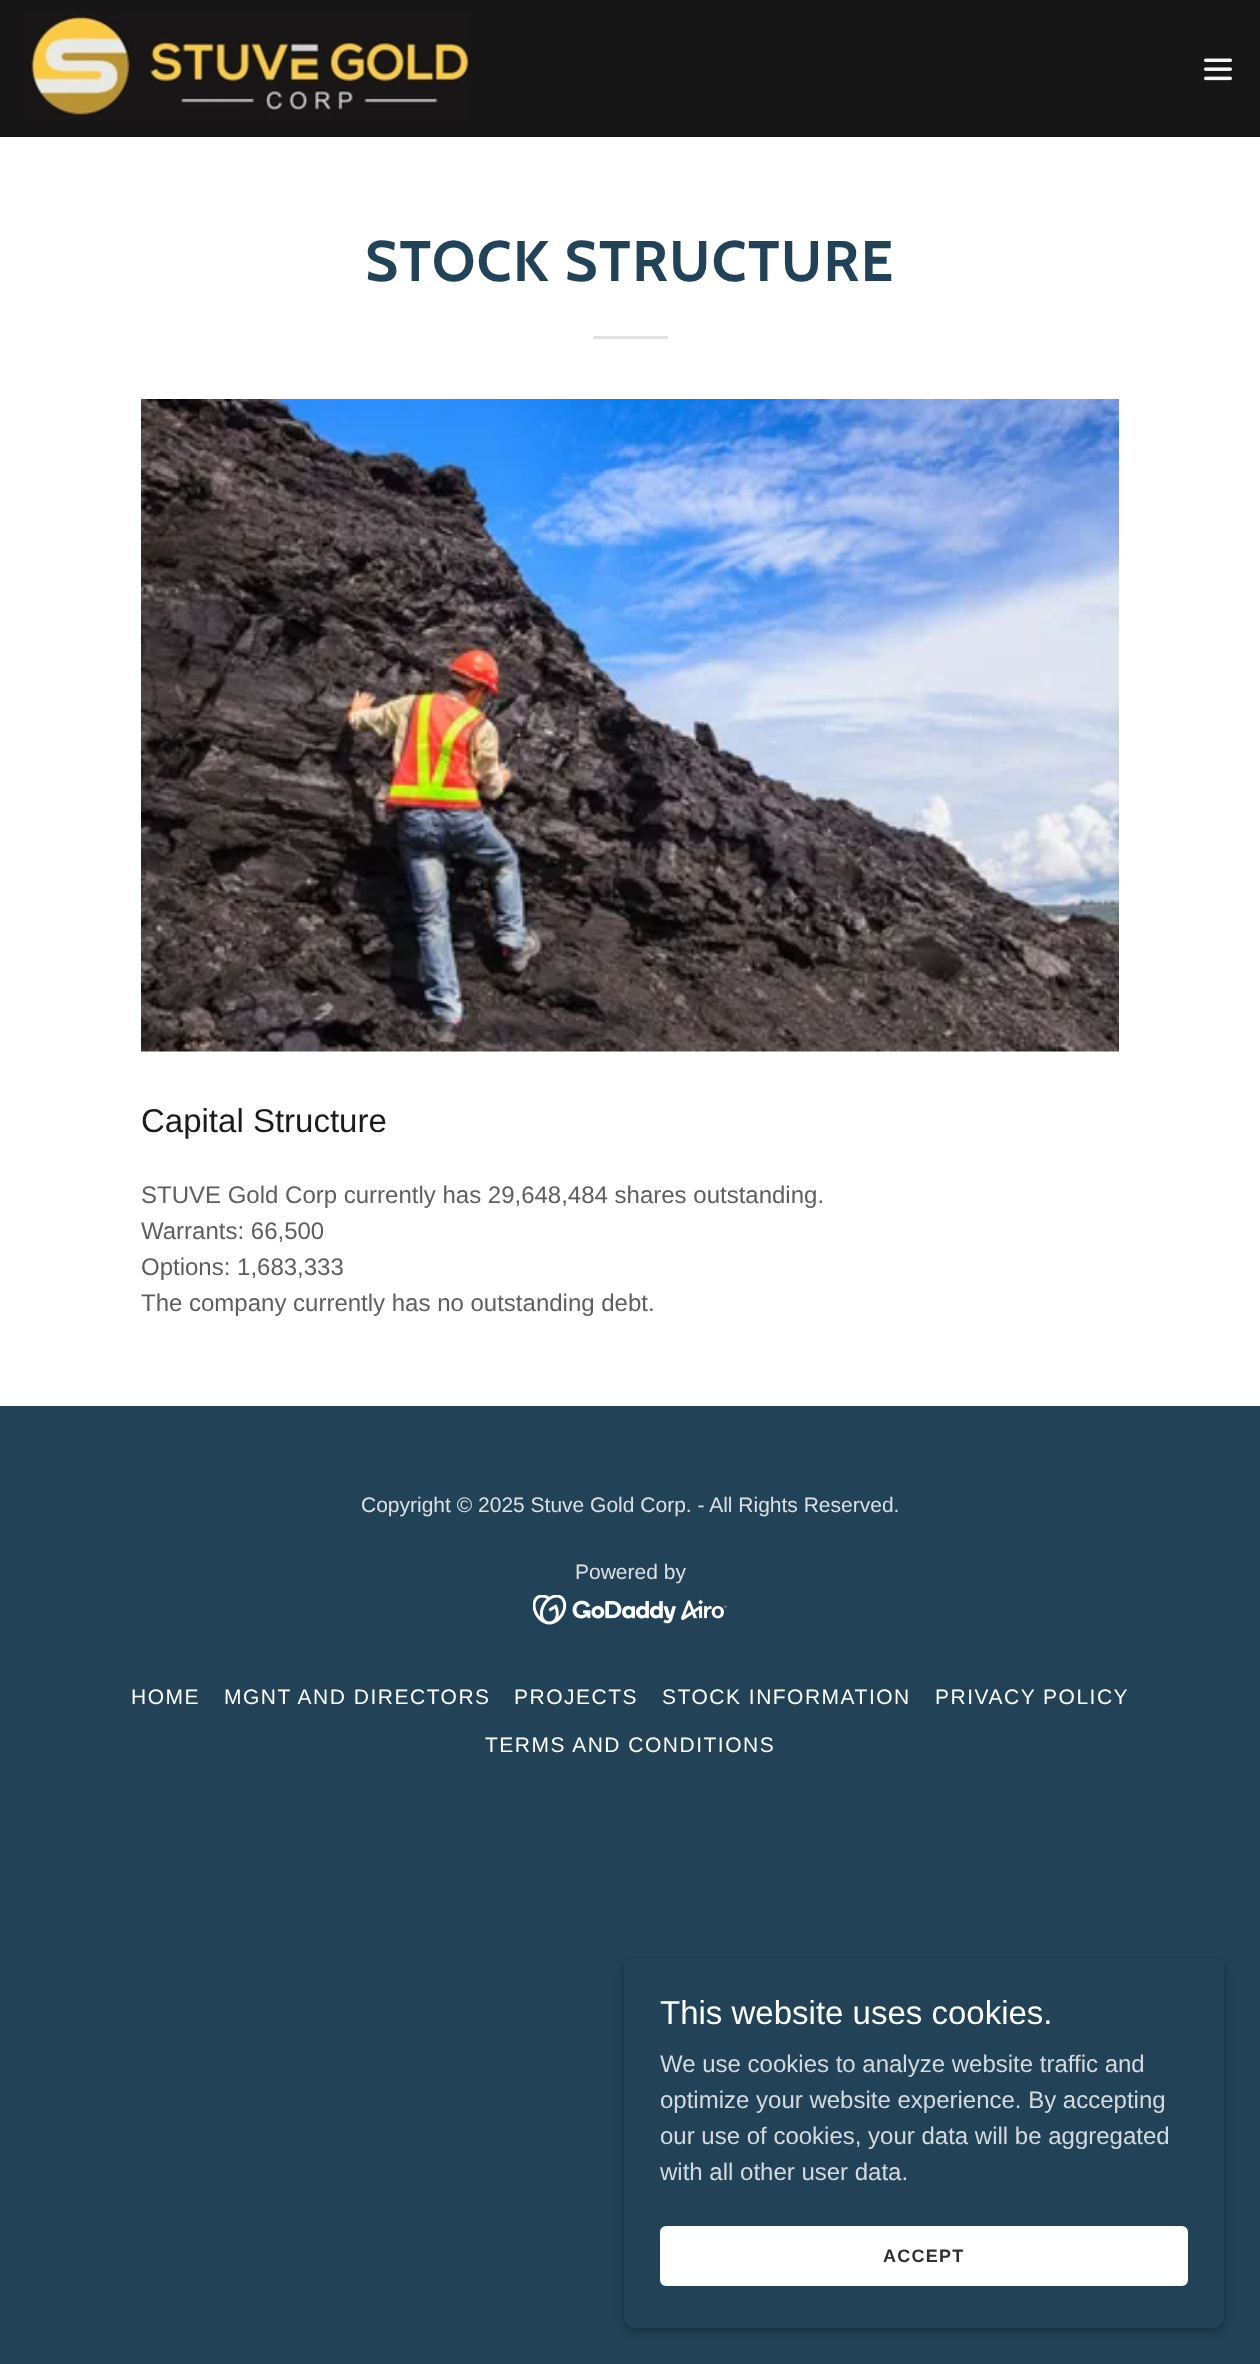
(async () => {
  const canvas = document.querySelector("canvas");
  canvas.width = 1260;
  canvas.height = 2364;
  const ctx = canvas.getContext("2d");
  ctx.miterLimit = 4;
  ctx.fontKerning = "normal";
  async function loadImage(src) {
    const img = new Image();
    img.src = src;
    await img.decode();
    return img;
  }

  ctx.fillStyle = "#224357";
  ctx.fillRect(0, 0, 1260, 2364);
  ctx.fillStyle = "#161616";
  ctx.fillRect(0, 0, 1260, 137);
  ctx.drawImage(await loadImage("img/1.png"), 24, 12, 446, 108);
  ctx.drawImage(await loadImage("img/2.png"), 1204, 58, 28, 23);
  ctx.fillStyle = "#ffffff";
  ctx.fillRect(0, 137, 1260, 1269);
  ctx.fillStyle = "#e2e2e2";
  ctx.fillRect(593, 336, 75, 3);
  ctx.drawImage(await loadImage("img/3.png"), 141, 399, 978, 653);
  ctx.drawImage(await loadImage("img/4.png"), 533, 1595, 194, 30);
  ctx.fillStyle = "rgba(0, 0, 0, 0.3)";
  ctx.filter = "blur(4.5px)";
  ctx.beginPath();
  ctx.roundRect(624, 1961, 600, 370, 11);
  ctx.fill();
  ctx.filter = "none";
  ctx.fillStyle = "#224357";
  ctx.beginPath();
  ctx.roundRect(624, 1958, 600, 370, 11);
  ctx.fill();
  ctx.fillStyle = "#ffffff";
  ctx.beginPath();
  ctx.roundRect(660, 2226, 528, 60, 6);
  ctx.fill();
  ctx.letterSpacing = "1.5px";
  ctx.font = "bold 57px Cabin";
  ctx.fillStyle = "#224357";
  ctx.fillText("STOCK STRUCTURE", 365, 281);
  ctx.letterSpacing = "0px";
  ctx.font = "33px Liberation Sans";
  ctx.fillStyle = "#1b1b1b";
  ctx.fillText("Capital Structure", 141, 1132);
  ctx.font = "24px Liberation Sans";
  ctx.fillStyle = "#5e5e5e";
  for (const [text, x, y] of [
    ["STUVE Gold Corp currently has 29,648,484 shares outstanding.", 141, 1203],
    ["Warrants: 66,500", 141, 1239],
    ["Options: 1,683,333", 141, 1275],
    ["The company currently has no outstanding debt.", 141, 1311],
  ]) {
    ctx.fillText(text, x, y);
  }
  ctx.font = "21px Liberation Sans";
  ctx.fillStyle = "#dce0e3";
  ctx.fillText("Copyright © 2025 Stuve Gold Corp. - All Rights Reserved.", 361, 1512);
  ctx.fillText("Powered by", 575, 1579);
  ctx.letterSpacing = "1.5px";
  ctx.fillStyle = "#ffffff";
  for (const [text, x, y] of [
    ["HOME", 131, 1704],
    ["MGNT AND DIRECTORS", 224, 1704],
    ["PROJECTS", 514, 1704],
    ["STOCK INFORMATION", 662, 1704],
    ["PRIVACY POLICY", 935, 1704],
    ["TERMS AND CONDITIONS", 485, 1752],
  ]) {
    ctx.fillText(text, x, y);
  }
  ctx.letterSpacing = "0px";
  ctx.font = "33px Liberation Sans";
  ctx.fillText("This website uses cookies.", 660, 2024);
  ctx.font = "24px Liberation Sans";
  ctx.fillStyle = "#d5dadf";
  for (const [text, x, y] of [
    ["We use cookies to analyze website traffic and", 660, 2072],
    ["optimize your website experience. By accepting", 660, 2108],
    ["our use of cookies, your data will be aggregated", 660, 2144],
    ["with all other user data.", 660, 2180],
  ]) {
    ctx.fillText(text, x, y);
  }
  ctx.letterSpacing = "1.25px";
  ctx.font = "bold 18px Liberation Sans";
  ctx.fillStyle = "#303030";
  ctx.fillText("ACCEPT", 883, 2262);
})();
